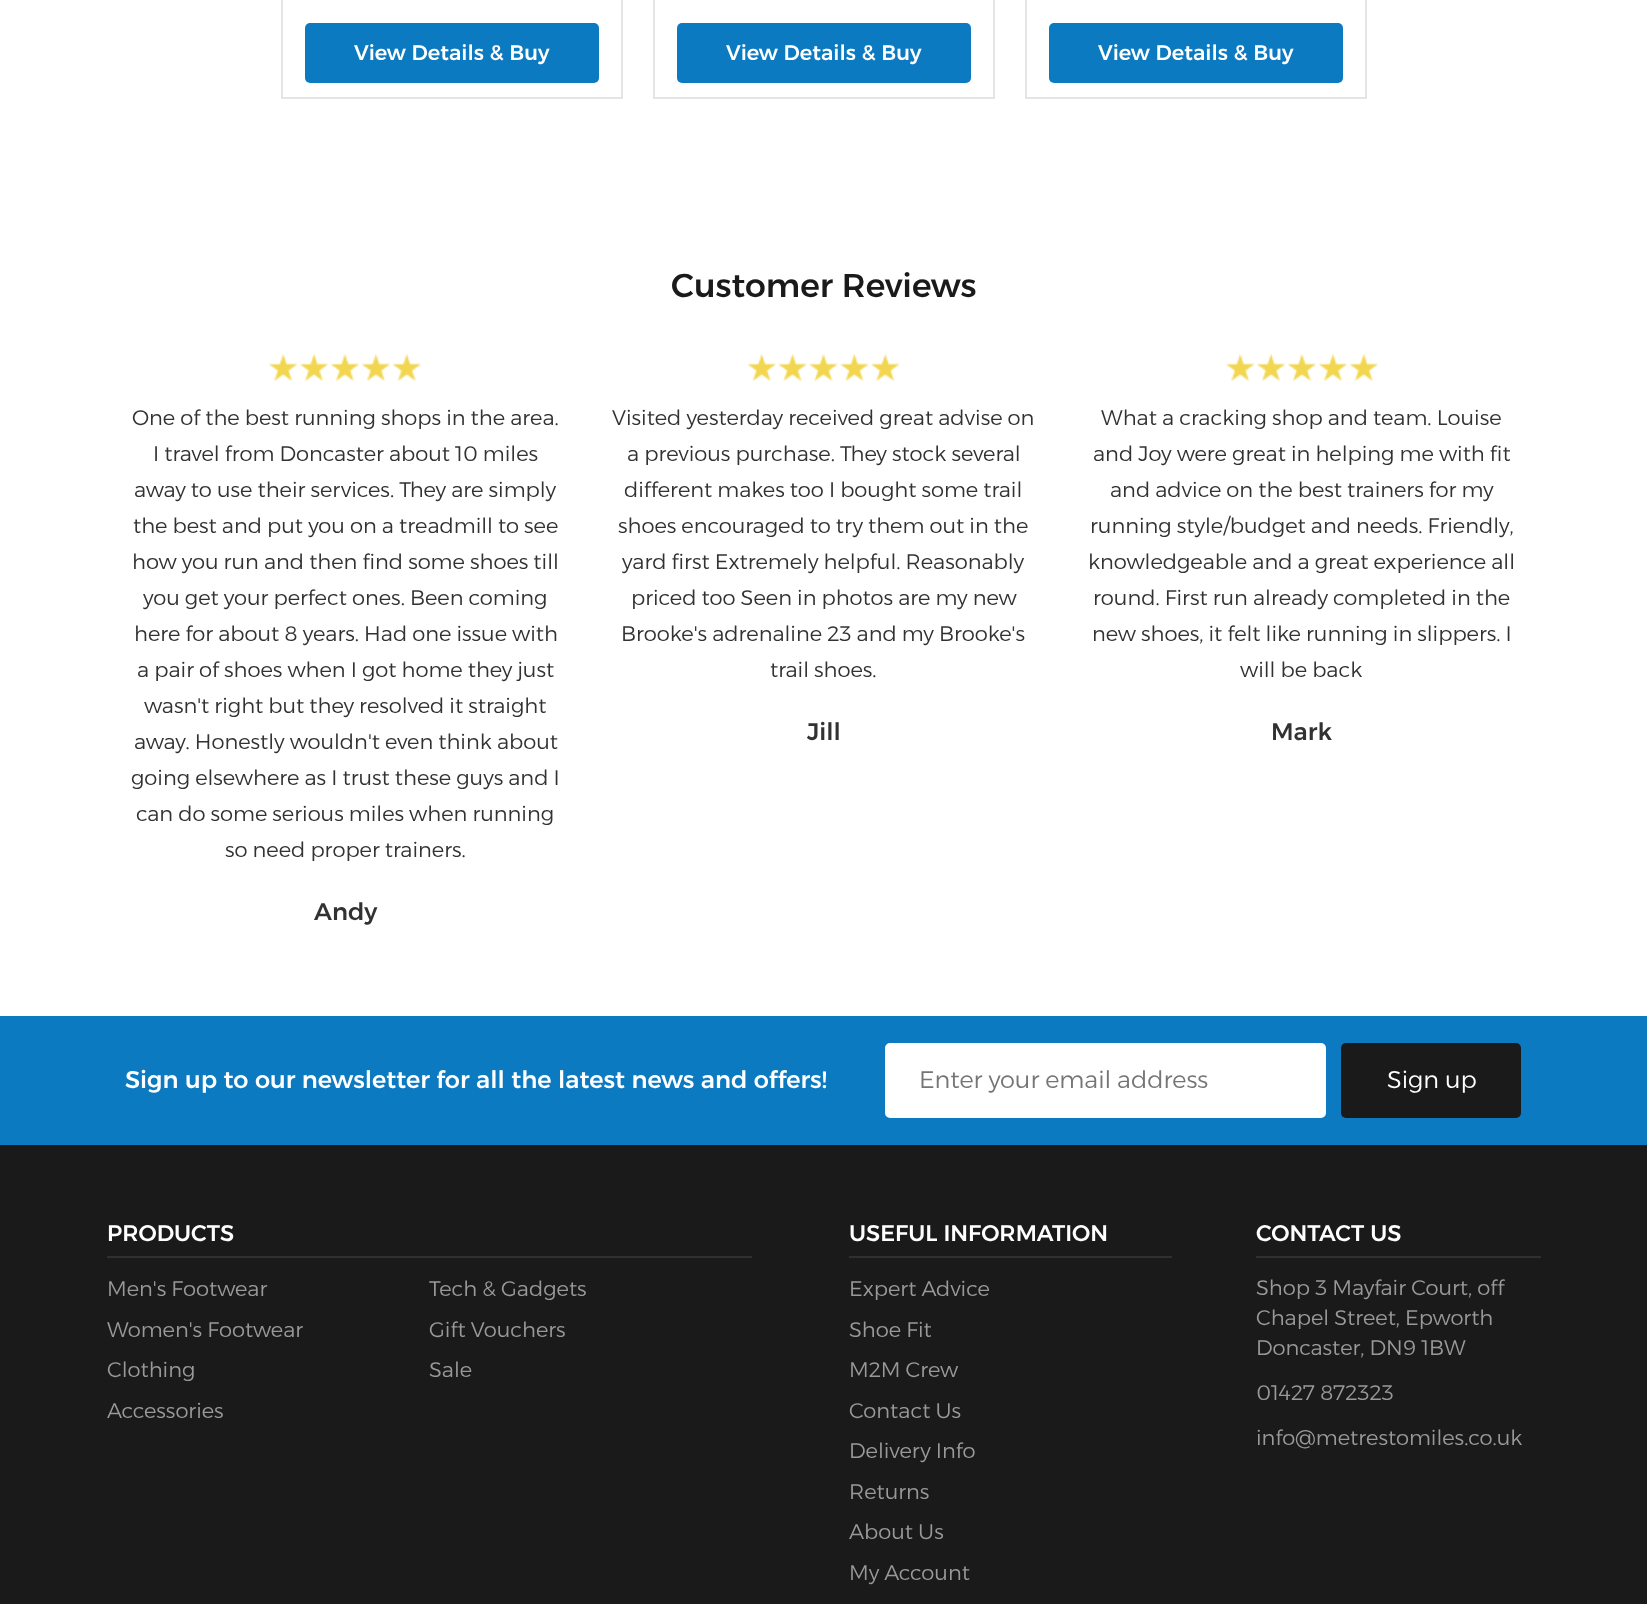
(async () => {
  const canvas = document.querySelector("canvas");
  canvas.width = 1647;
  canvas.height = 1604;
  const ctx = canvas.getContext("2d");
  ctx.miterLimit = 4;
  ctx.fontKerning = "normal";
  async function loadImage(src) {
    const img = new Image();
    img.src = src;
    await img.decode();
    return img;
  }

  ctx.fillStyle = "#ffffff";
  ctx.fillRect(0, 0, 1647, 1604);
  ctx.strokeStyle = "#e5e5e5";
  ctx.lineWidth = 2;
  ctx.strokeRect(282, -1, 340, 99);
  ctx.fillStyle = "#0c7ac1";
  ctx.beginPath();
  ctx.roundRect(305, 23, 294, 60, 5);
  ctx.fill();
  ctx.strokeRect(654, -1, 340, 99);
  ctx.beginPath();
  ctx.roundRect(677, 23, 294, 60, 5);
  ctx.fill();
  ctx.strokeRect(1026, -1, 340, 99);
  ctx.beginPath();
  ctx.roundRect(1049, 23, 294, 60, 5);
  ctx.fill();
  ctx.drawImage(await loadImage("img/1.png"), 268, 354, 154, 27);
  ctx.drawImage(await loadImage("img/2.png"), 747, 354, 153, 27);
  ctx.drawImage(await loadImage("img/1.png"), 1225, 354, 154, 27);
  ctx.fillRect(0, 1016, 1647, 129);
  ctx.fillStyle = "#ffffff";
  ctx.beginPath();
  ctx.roundRect(886.5, 1044.5, 438, 72, 3.5);
  ctx.fill();
  ctx.strokeStyle = "#ffffff";
  ctx.lineWidth = 3;
  ctx.stroke();
  ctx.fillStyle = "#1a1a1a";
  ctx.beginPath();
  ctx.roundRect(1341, 1043, 180, 75, 5);
  ctx.fill();
  for (const [x, y, w, h, color] of [
    [0, 1145, 1647, 459, "#1a1a1a"],
    [107, 1256, 645, 2, "#303030"],
    [849, 1256, 323, 2, "#303030"],
    [1256, 1256, 285, 2, "#303030"],
  ]) {
    ctx.fillStyle = color;
    ctx.fillRect(x, y, w, h);
  }
  ctx.font = "500 21px Alexandria";
  ctx.fillStyle = "#ffffff";
  for (const [text, x, y] of [
    ["View Details & Buy", 354, 60],
    ["View Details & Buy", 726, 60],
    ["View Details & Buy", 1098, 60],
  ]) {
    ctx.fillText(text, x, y);
  }
  ctx.font = "500 33px Alexandria";
  ctx.fillStyle = "#1a1a1a";
  ctx.fillText("Customer Reviews", 671, 297);
  ctx.font = "300 21px Alexandria";
  ctx.fillStyle = "#323232";
  for (const [text, x, y] of [
    ["One of the best running shops in the area.", 132, 425],
    ["I travel from Doncaster about 10 miles", 153, 461],
    ["away to use their services. They are simply", 134, 497],
    ["the best and put you on a treadmill to see", 133, 533],
    ["how you run and then find some shoes till", 132, 569],
    ["you get your perfect ones. Been coming", 143, 605],
    ["here for about 8 years. Had one issue with", 134, 641],
    ["a pair of shoes when I got home they just", 137, 677],
    ["wasn't right but they resolved it straight", 144, 713],
    ["away. Honestly wouldn't even think about", 134, 749],
    ["going elsewhere as I trust these guys and I", 131, 785],
    ["can do some serious miles when running", 136, 821],
    ["so need proper trainers.", 225, 857],
  ]) {
    ctx.fillText(text, x, y);
  }
  ctx.font = "500 24px Alexandria";
  ctx.fillText("Andy", 314, 920);
  ctx.font = "300 21px Alexandria";
  for (const [text, x, y] of [
    ["Visited yesterday received great advise on", 612, 425],
    ["a previous purchase. They stock several", 627, 461],
    ["different makes too I bought some trail", 624, 497],
    ["shoes encouraged to try them out in the", 618, 533],
    ["yard first Extremely helpful. Reasonably", 622, 569],
    ["priced too Seen in photos are my new", 631, 605],
    ["Brooke's adrenaline 23 and my Brooke's", 621, 641],
    ["trail shoes.", 770, 677],
  ]) {
    ctx.fillText(text, x, y);
  }
  ctx.font = "500 24px Alexandria";
  ctx.fillText("Jill", 807, 740);
  ctx.font = "300 21px Alexandria";
  for (const [text, x, y] of [
    ["What a cracking shop and team. Louise", 1101, 425],
    ["and Joy were great in helping me with fit", 1093, 461],
    ["and advice on the best trainers for my", 1110, 497],
    ["running style/budget and needs. Friendly,", 1090, 533],
    ["knowledgeable and a great experience all", 1088, 569],
    ["round. First run already completed in the", 1093, 605],
    ["new shoes, it felt like running in slippers. I", 1092, 641],
    ["will be back", 1240, 677],
  ]) {
    ctx.fillText(text, x, y);
  }
  ctx.font = "500 24px Alexandria";
  ctx.fillText("Mark", 1271, 740);
  ctx.fillStyle = "#ffffff";
  ctx.fillText("Sign up to our newsletter for all the latest news and offers!", 125, 1088);
  ctx.font = "300 24px Alexandria";
  ctx.fillStyle = "#757575";
  ctx.fillText("Enter your email address", 919, 1088);
  ctx.fillStyle = "#ffffff";
  ctx.fillText("Sign up", 1387, 1088);
  ctx.font = "500 22.5px Alexandria";
  ctx.fillText("PRODUCTS", 107, 1241);
  ctx.font = "300 21px Alexandria";
  ctx.fillStyle = "#999999";
  for (const [text, x, y] of [
    ["Men's Footwear", 107, 1296],
    ["Women's Footwear", 107, 1337],
    ["Clothing", 107, 1377],
    ["Accessories", 107, 1418],
    ["Tech & Gadgets", 429, 1296],
    ["Gift Vouchers", 429, 1337],
    ["Sale", 429, 1377],
  ]) {
    ctx.fillText(text, x, y);
  }
  ctx.font = "500 22.5px Alexandria";
  ctx.fillStyle = "#ffffff";
  ctx.fillText("USEFUL INFORMATION", 849, 1241);
  ctx.font = "300 21px Alexandria";
  ctx.fillStyle = "#999999";
  for (const [text, x, y] of [
    ["Expert Advice", 849, 1296],
    ["Shoe Fit", 849, 1337],
    ["M2M Crew", 849, 1377],
    ["Contact Us", 849, 1418],
    ["Delivery Info", 849, 1458],
    ["Returns", 849, 1499],
    ["About Us", 849, 1539],
    ["My Account", 849, 1580],
  ]) {
    ctx.fillText(text, x, y);
  }
  ctx.font = "500 22.5px Alexandria";
  ctx.fillStyle = "#ffffff";
  ctx.fillText("CONTACT US", 1256, 1241);
  ctx.font = "300 21px Alexandria";
  ctx.fillStyle = "#999999";
  for (const [text, x, y] of [
    ["Shop 3 Mayfair Court, off", 1256, 1295],
    ["Chapel Street, Epworth", 1256, 1325],
    ["Doncaster, DN9 1BW", 1256, 1355],
    ["01427 872323", 1256, 1400],
    ["info@metrestomiles.co.uk", 1256, 1445],
  ]) {
    ctx.fillText(text, x, y);
  }
})();
